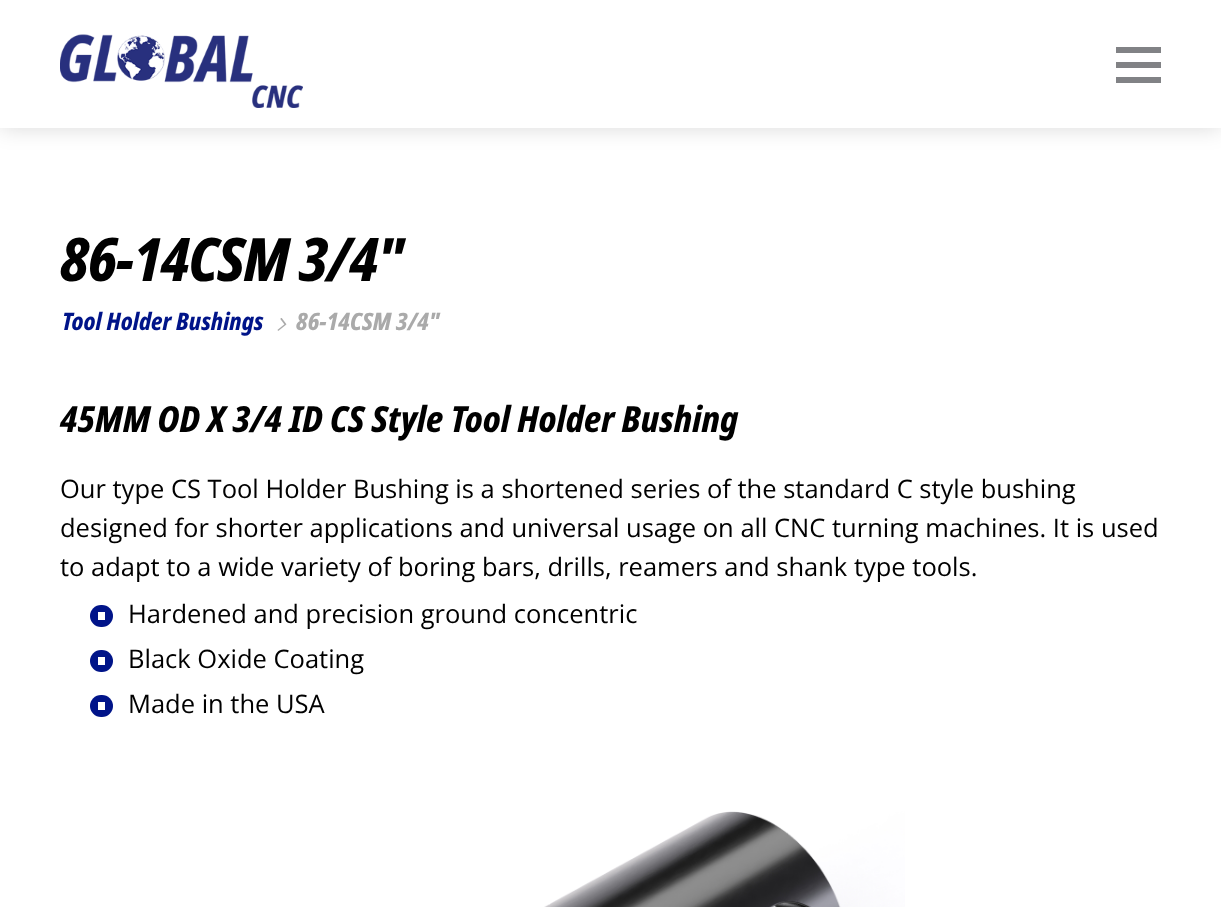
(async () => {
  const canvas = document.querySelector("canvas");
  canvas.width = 1221;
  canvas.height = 907;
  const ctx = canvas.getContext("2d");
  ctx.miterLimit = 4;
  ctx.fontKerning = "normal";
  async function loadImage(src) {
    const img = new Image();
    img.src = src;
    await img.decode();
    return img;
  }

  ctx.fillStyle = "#ffffff";
  ctx.fillRect(0, 0, 1221, 907);
  ctx.fillStyle = "rgba(0, 0, 0, 0.15)";
  ctx.filter = "blur(11px)";
  ctx.beginPath();
  ctx.rect(0, 0, 1221, 128);
  ctx.fill();
  ctx.filter = "none";
  ctx.fillStyle = "#ffffff";
  ctx.fillRect(0, 0, 1221, 128);
  ctx.drawImage(await loadImage("img/1.png"), 60, 34, 243, 74);
  for (const [x, y, w, h, color] of [
    [1116, 62, 45, 6, "#818285"],
    [1116, 47, 45, 6, "#818285"],
    [1116, 77, 45, 6, "#818285"],
  ]) {
    ctx.fillStyle = color;
    ctx.fillRect(x, y, w, h);
  }
  ctx.drawImage(await loadImage("img/2.png"), 277, 318, 10, 13);
  ctx.fillStyle = "#001489";
  ctx.beginPath();
  ctx.roundRect(90, 605, 23, 22, 11);
  ctx.fill();
  ctx.fillStyle = "#ffffff";
  ctx.fillRect(98, 612, 7, 8);
  ctx.fillStyle = "#001489";
  ctx.beginPath();
  ctx.roundRect(90, 650, 23, 22, 11);
  ctx.fill();
  ctx.fillStyle = "#ffffff";
  ctx.fillRect(98, 657, 7, 8);
  ctx.fillStyle = "#001489";
  ctx.beginPath();
  ctx.roundRect(90, 695, 23, 22, 11);
  ctx.fill();
  ctx.fillStyle = "#ffffff";
  ctx.fillRect(98, 702, 7, 8);
  ctx.drawImage(await loadImage("img/3.png"), 544, 811, 361, 96);
  ctx.letterSpacing = "-1.25px";
  ctx.font = "italic 800 60px Noto Sans";
  ctx.fillStyle = "#000000";
  ctx.fillText("86-14CSM 3/4\"", 60, 281);
  ctx.letterSpacing = "0px";
  ctx.font = "italic 800 24px Noto Sans";
  ctx.fillStyle = "#001489";
  ctx.fillText("Tool Holder Bushings", 62, 330);
  ctx.fillStyle = "#aaaaaa";
  ctx.fillText("86-14CSM 3/4\"", 296, 330);
  ctx.font = "italic 800 36px Noto Sans";
  ctx.fillStyle = "#000000";
  ctx.fillText("45MM OD X 3/4 ID CS Style Tool Holder Bushing", 60, 432);
  ctx.font = "25.5px Open Sans";
  for (const [text, x, y] of [
    ["Our type CS Tool Holder Bushing is a shortened series of the standard C style bushing", 60, 498],
    ["designed for shorter applications and universal usage on all CNC turning machines. It is used", 60, 537],
    ["to adapt to a wide variety of boring bars, drills, reamers and shank type tools.", 60, 576],
    ["Hardened and precision ground concentric", 128, 623],
    ["Black Oxide Coating", 128, 668],
    ["Made in the USA", 128, 713],
  ]) {
    ctx.fillText(text, x, y);
  }
})();
